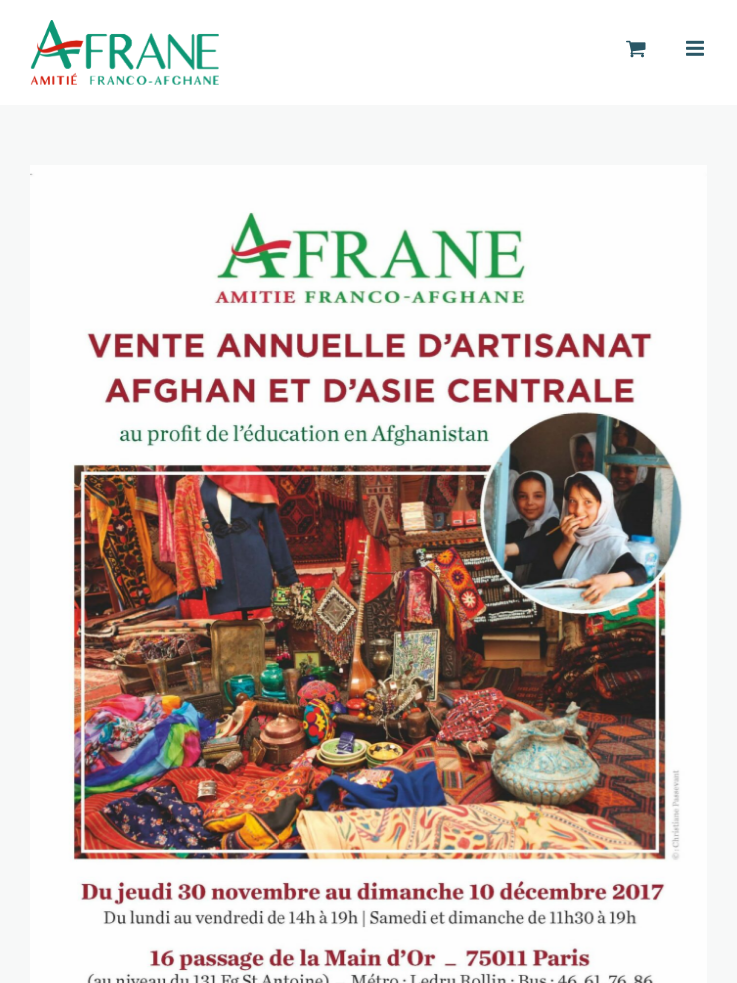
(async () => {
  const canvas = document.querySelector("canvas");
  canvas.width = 737;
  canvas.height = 983;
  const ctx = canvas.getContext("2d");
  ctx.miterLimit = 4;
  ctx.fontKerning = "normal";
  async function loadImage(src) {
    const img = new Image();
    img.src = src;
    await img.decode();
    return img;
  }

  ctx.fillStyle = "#f7f8f8";
  ctx.fillRect(0, 0, 737, 983);
  ctx.fillStyle = "#ffffff";
  ctx.fillRect(0, 0, 737, 105);
  ctx.drawImage(await loadImage("img/1.png"), 30, 20, 189, 65);
  ctx.drawImage(await loadImage("img/2.png"), 626, 40, 20, 18);
  ctx.drawImage(await loadImage("img/3.png"), 686, 40, 18, 16);
  ctx.drawImage(await loadImage("img/4.png"), 30, 165, 677, 818);
})();
